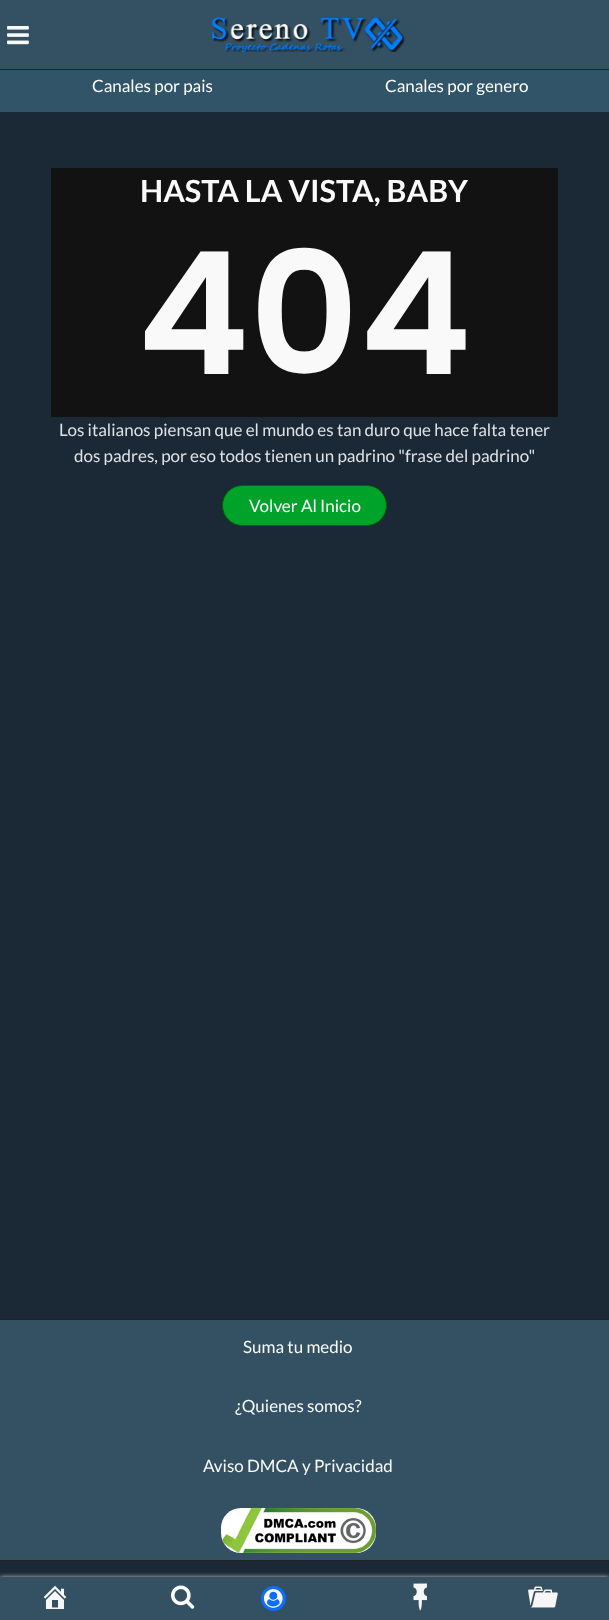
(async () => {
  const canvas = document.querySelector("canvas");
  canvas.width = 609;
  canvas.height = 1620;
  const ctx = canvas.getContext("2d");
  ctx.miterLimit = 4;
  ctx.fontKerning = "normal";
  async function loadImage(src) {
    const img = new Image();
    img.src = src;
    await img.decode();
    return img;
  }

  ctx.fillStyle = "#1b2836";
  ctx.fillRect(0, 0, 609, 1620);
  ctx.fillStyle = "#335163";
  ctx.fillRect(0, 0, 609, 69);
  ctx.fillStyle = "#222222";
  ctx.fillRect(0, 69, 609, 1);
  ctx.drawImage(await loadImage("img/1.png"), 7, 26, 22, 19);
  ctx.drawImage(await loadImage("img/2.png"), 212, 17, 193, 35);
  ctx.fillStyle = "#315469";
  ctx.fillRect(0, 70, 609, 42);
  ctx.fillStyle = "#121212";
  ctx.fillRect(51, 168, 507, 249);
  ctx.fillStyle = "#00a32a";
  ctx.beginPath();
  ctx.roundRect(222.5, 485.5, 164, 40, 20);
  ctx.fill();
  ctx.strokeStyle = "#006400";
  ctx.stroke();
  ctx.fillStyle = "#335163";
  ctx.fillRect(0, 1320, 609, 240);
  ctx.fillStyle = "#222222";
  ctx.fillRect(0, 1319, 609, 1);
  ctx.fillStyle = "#ffffff";
  ctx.beginPath();
  ctx.roundRect(221, 1508, 155, 45, 20);
  ctx.fill();
  ctx.drawImage(await loadImage("img/3.png"), 222, 1508, 154, 45);
  ctx.fillStyle = "#222222";
  ctx.fillRect(0, 1560, 609, 1);
  ctx.fillStyle = "#cccccc";
  ctx.filter = "blur(2.5px)";
  ctx.beginPath();
  ctx.rect(0, 1577, 609, 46);
  ctx.fill();
  ctx.filter = "none";
  ctx.fillStyle = "#335163";
  ctx.fillRect(0, 1577, 609, 43);
  ctx.drawImage(await loadImage("img/4.png"), 43, 1585, 24, 24);
  ctx.drawImage(await loadImage("img/5.png"), 171, 1585, 24, 24);
  ctx.fillStyle = "#0d6efd";
  ctx.beginPath();
  ctx.arc(273.5, 1598.5, 12.5, 0, Math.PI * 2);
  ctx.fill();
  ctx.drawImage(await loadImage("img/6.png"), 263, 1589, 20, 19);
  ctx.drawImage(await loadImage("img/7.png"), 413, 1583, 14, 28);
  ctx.drawImage(await loadImage("img/8.png"), 528, 1586, 30, 22);
  ctx.font = "17px Lato";
  ctx.fillStyle = "#ffffff";
  ctx.fillText("Canales por pais", 92, 92);
  ctx.fillText("Canales por genero", 385, 92);
  ctx.font = "bold 30.6px Lato";
  ctx.fillStyle = "#f9f9f9";
  ctx.fillText("HASTA LA VISTA, BABY", 140, 202);
  ctx.font = "600 170px Poppins";
  ctx.fillText("404", 137, 374);
  ctx.font = "17px Lato";
  ctx.fillStyle = "#dee2e6";
  ctx.fillText("Los italianos piensan que el mundo es tan duro que hace falta tener", 59, 436);
  ctx.fillText("dos padres, por eso todos tienen un padrino \"frase del padrino\"", 74, 462);
  ctx.fillStyle = "#ffffff";
  ctx.fillText("Volver Al Inicio", 249, 512);
  ctx.fillStyle = "#f9f9f9";
  for (const [text, x, y] of [
    ["Suma tu medio", 243, 1353],
    ["¿Quienes somos?", 235, 1412],
    ["Aviso DMCA y Privacidad", 203, 1472],
  ]) {
    ctx.fillText(text, x, y);
  }
})();
